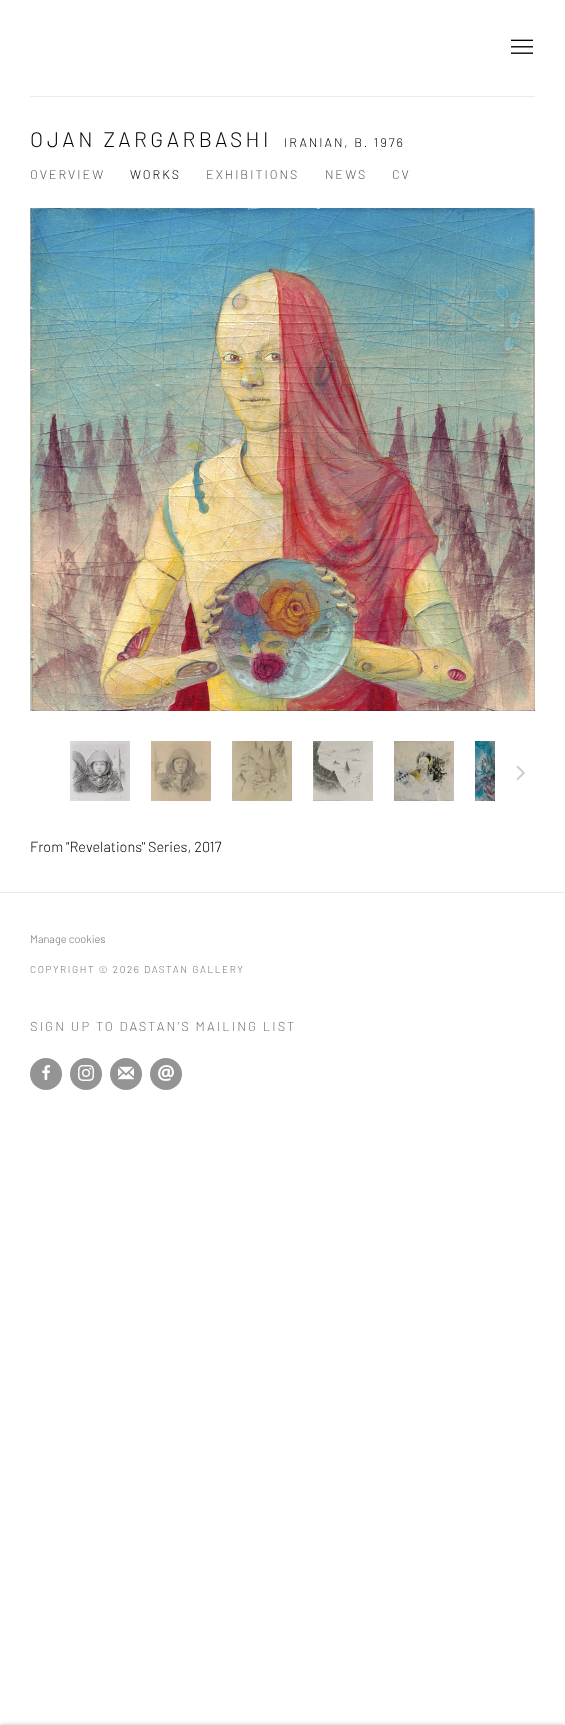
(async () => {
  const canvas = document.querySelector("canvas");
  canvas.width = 565;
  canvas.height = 1725;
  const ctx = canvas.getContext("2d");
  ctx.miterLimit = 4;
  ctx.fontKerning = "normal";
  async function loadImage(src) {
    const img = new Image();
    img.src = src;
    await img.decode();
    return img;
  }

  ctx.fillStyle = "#ffffff";
  ctx.fillRect(0, 0, 565, 1725);
  ctx.fillStyle = "#ebebeb";
  ctx.fillRect(30, 96, 505, 1);
  ctx.drawImage(await loadImage("img/1.png"), 511, 39, 22, 15);
  ctx.drawImage(await loadImage("img/2.png"), 30, 208, 505, 503);
  ctx.drawImage(await loadImage("img/3.png"), 70, 741, 60, 60);
  ctx.drawImage(await loadImage("img/4.png"), 151, 741, 60, 60);
  ctx.drawImage(await loadImage("img/5.png"), 232, 741, 60, 60);
  ctx.drawImage(await loadImage("img/6.png"), 313, 741, 60, 60);
  ctx.drawImage(await loadImage("img/7.png"), 394, 741, 60, 60);
  ctx.drawImage(await loadImage("img/8.png"), 475, 741, 20, 60);
  ctx.drawImage(await loadImage("img/9.png"), 516, 765, 9, 15);
  ctx.fillRect(0, 892, 565, 1);
  ctx.fillStyle = "#949494";
  ctx.beginPath();
  ctx.arc(46, 1074, 16, 0, Math.PI * 2);
  ctx.fill();
  ctx.drawImage(await loadImage("img/10.png"), 42, 1065, 8, 15);
  ctx.beginPath();
  ctx.arc(86, 1074, 16, 0, Math.PI * 2);
  ctx.fill();
  ctx.drawImage(await loadImage("img/11.png"), 78, 1065, 16, 16);
  ctx.beginPath();
  ctx.arc(126, 1074, 16, 0, Math.PI * 2);
  ctx.fill();
  ctx.drawImage(await loadImage("img/12.png"), 118, 1066, 16, 14);
  ctx.beginPath();
  ctx.arc(166, 1074, 16, 0, Math.PI * 2);
  ctx.fill();
  ctx.drawImage(await loadImage("img/13.png"), 158, 1065, 16, 16);
  ctx.fillStyle = "rgba(0, 0, 0, 0.23)";
  ctx.filter = "blur(2.5px)";
  ctx.beginPath();
  ctx.rect(0, 1725, 565, 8);
  ctx.fill();
  ctx.filter = "none";
  ctx.letterSpacing = "3.4px";
  ctx.font = "300 21px Barlow";
  ctx.fillStyle = "#010101";
  ctx.fillText("OJAN ZARGARBASHI", 30, 147);
  ctx.letterSpacing = "2px";
  ctx.font = "300 12.5px Barlow";
  ctx.fillText("IRANIAN, B. 1976", 284, 147);
  ctx.fillStyle = "#585858";
  ctx.fillText("OVERVIEW", 30, 179);
  ctx.fillStyle = "#010101";
  ctx.fillText("WORKS", 130, 179);
  ctx.fillStyle = "#585858";
  for (const [text, x, y] of [
    ["EXHIBITIONS", 206, 179],
    ["NEWS", 325, 179],
    ["CV", 392, 179],
  ]) {
    ctx.fillText(text, x, y);
  }
  ctx.letterSpacing = "0px";
  ctx.font = "300 14.5px Barlow";
  ctx.fillStyle = "#010101";
  ctx.fillText("From \"Revelations\" Series, 2017", 30, 852);
  ctx.font = "300 11px Barlow";
  ctx.fillStyle = "#737373";
  ctx.fillText("Manage cookies", 30, 943);
  ctx.letterSpacing = "1.6px";
  ctx.font = "300 10px Barlow";
  ctx.fillText("COPYRIGHT © 2026 DASTAN GALLERY", 30, 973);
  ctx.letterSpacing = "2.1px";
  ctx.font = "300 13px Barlow";
  ctx.fillText("SIGN UP TO DASTAN'S MAILING LIST", 30, 1031);
})();
